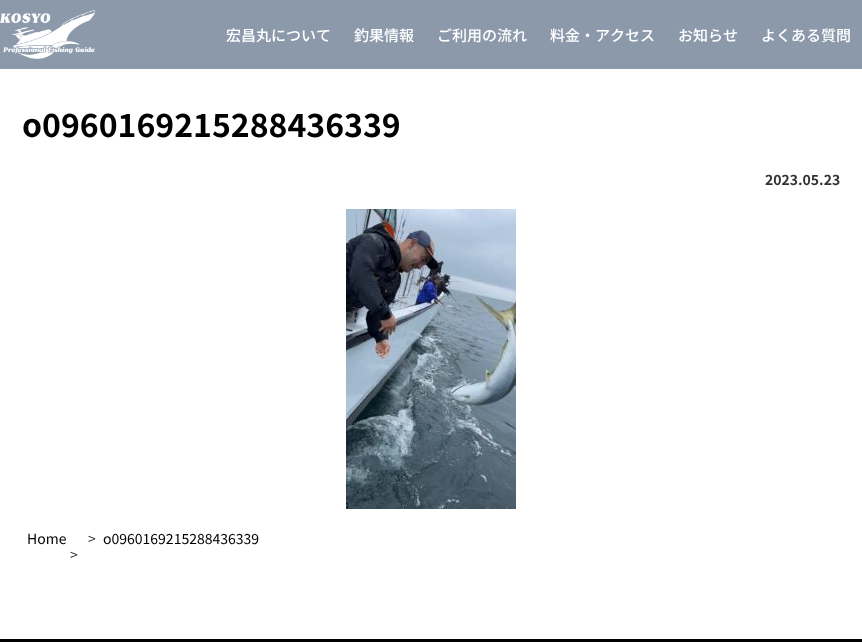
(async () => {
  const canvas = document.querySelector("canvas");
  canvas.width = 862;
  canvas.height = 642;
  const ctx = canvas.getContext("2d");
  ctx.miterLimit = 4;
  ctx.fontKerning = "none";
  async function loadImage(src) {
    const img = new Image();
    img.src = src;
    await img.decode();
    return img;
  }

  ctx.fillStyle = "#ffffff";
  ctx.fillRect(0, 0, 862, 642);
  ctx.fillStyle = "#8b99ab";
  ctx.fillRect(0, 0, 862, 69);
  ctx.drawImage(await loadImage("img/1.png"), 0, 10, 95, 49);
  ctx.drawImage(await loadImage("img/2.png"), 346, 209, 170, 300);
  ctx.fillStyle = "#000000";
  ctx.fillRect(0, 639, 862, 3);
  ctx.font = "500 15px Noto Sans JP";
  ctx.fillStyle = "#ffffff";
  for (const [text, x, y] of [
    ["宏昌丸について", 226, 41],
    ["釣果情報", 354, 41],
    ["ご利用の流れ", 437, 41],
    ["料金・アクセス", 550, 41],
    ["お知らせ", 678, 41],
    ["よくある質問", 761, 41],
  ]) {
    ctx.fillText(text, x, y);
  }
  ctx.font = "bold 32px Noto Sans JP";
  ctx.fillStyle = "#000000";
  ctx.fillText("o0960169215288436339", 22, 137);
  ctx.font = "bold 14px Noto Sans JP";
  ctx.fillStyle = "#333333";
  ctx.fillText("2023.05.23", 765, 185);
  ctx.font = "14px Noto Sans JP";
  ctx.fillStyle = "#000000";
  ctx.fillText("Home", 27, 544);
  ctx.fillStyle = "#333333";
  ctx.fillText(">", 88, 544);
  ctx.fillStyle = "#000000";
  ctx.fillText("o0960169215288436339", 103, 544);
  ctx.fillStyle = "#333333";
  ctx.fillText(">", 70, 560);
})();
